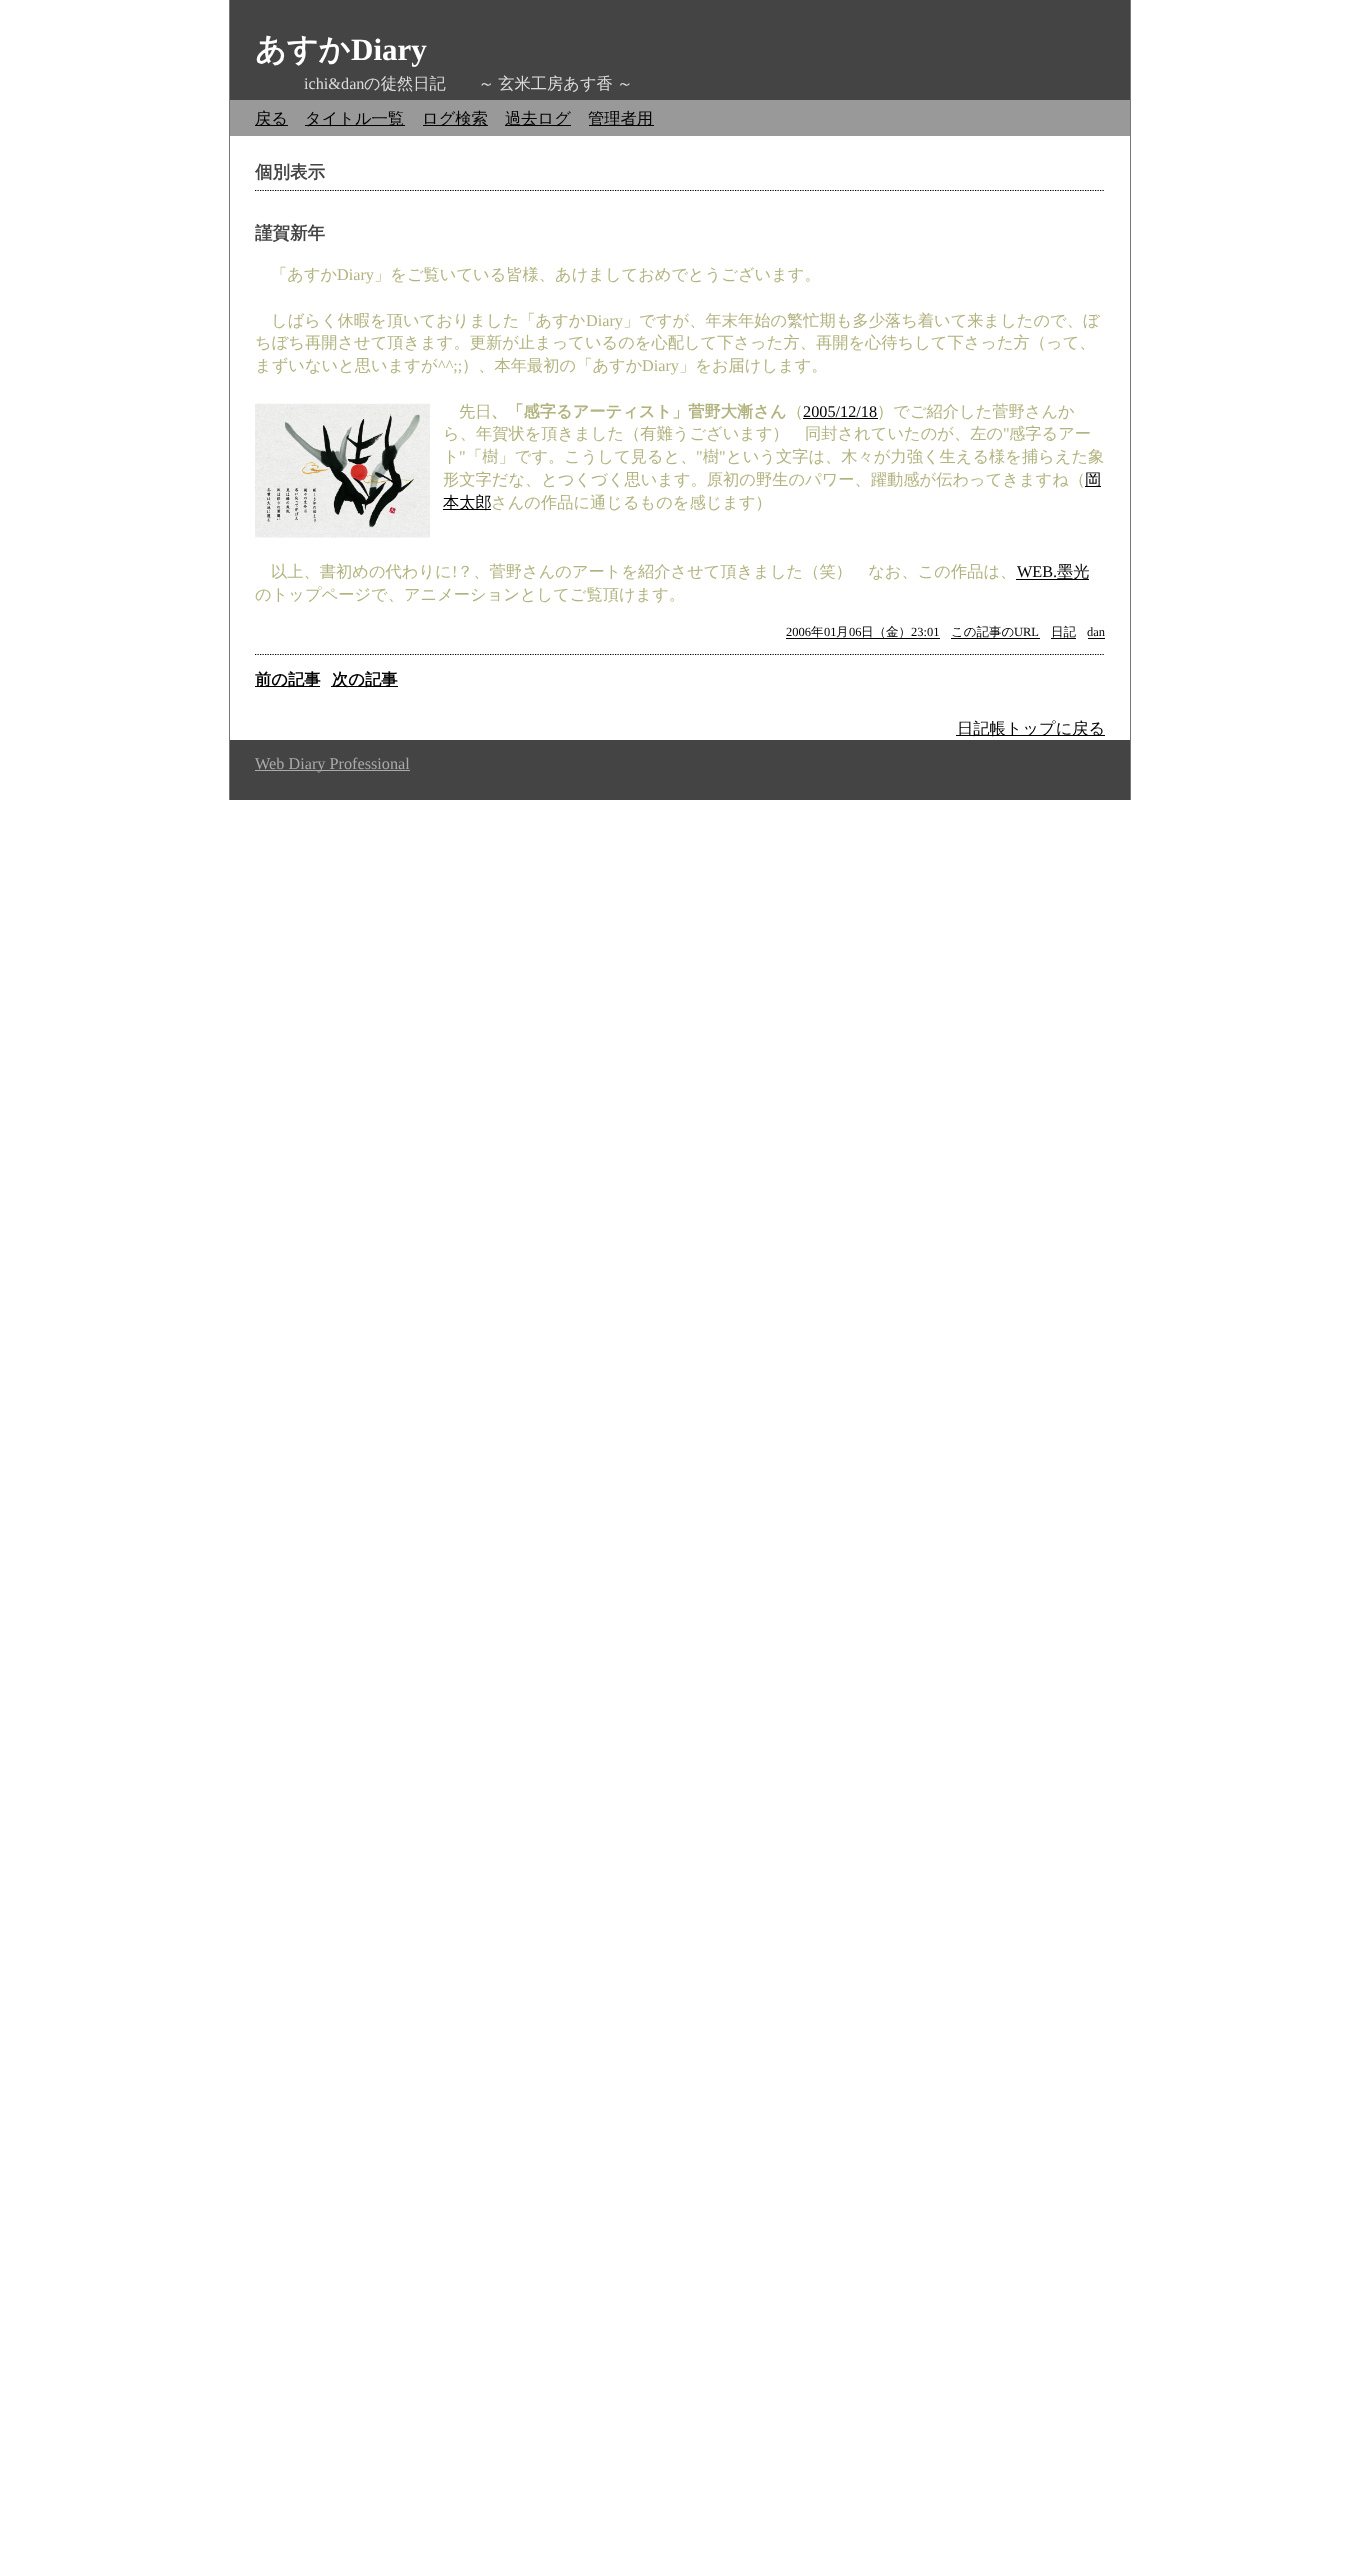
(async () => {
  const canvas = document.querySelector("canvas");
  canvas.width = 1359;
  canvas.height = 2575;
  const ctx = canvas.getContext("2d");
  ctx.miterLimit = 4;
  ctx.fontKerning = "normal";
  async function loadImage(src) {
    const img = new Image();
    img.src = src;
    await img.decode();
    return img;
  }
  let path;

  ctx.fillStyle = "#ffffff";
  ctx.fillRect(0, 0, 1359, 2575);
  for (const [x, y, w, h, color] of [
    [1130, 0, 1, 800, "#777777"],
    [229, 0, 1, 800, "#777777"],
    [230, 0, 900, 100, "#444444"],
    [230, 100, 900, 36, "#999999"],
    [255, 125, 33, 1, "#000000"],
    [305, 125, 100, 1, "#000000"],
    [423, 125, 65, 1, "#000000"],
    [505, 125, 66, 1, "#000000"],
    [589, 125, 65, 1, "#000000"],
  ]) {
    ctx.fillStyle = color;
    ctx.fillRect(x, y, w, h);
  }
  path = new Path2D("M255 190.5H1105");
  ctx.strokeStyle = "#000000";
  ctx.lineWidth = 1.2;
  ctx.setLineDash([1.25, 1.25]);
  ctx.stroke(path);
  path = new Path2D("M255 654.5H1105");
  ctx.stroke(path);
  ctx.drawImage(await loadImage("img/1.png"), 255, 403, 175, 135);
  for (const [x, y, w, h, color] of [
    [803, 418, 75, 1, "#000000"],
    [1085, 486, 16, 1, "#000000"],
    [443, 509, 48, 1, "#000000"],
    [1016, 579, 73, 1, "#000000"],
    [786, 638, 154, 1, "#000000"],
    [951, 638, 89, 1, "#000000"],
    [1051, 638, 25, 1, "#000000"],
    [1088, 638, 17, 1, "#000000"],
    [255, 686, 65, 1, "#000000"],
    [331, 686, 67, 1, "#000000"],
    [956, 735, 149, 1, "#000000"],
    [230, 740, 900, 60, "#444444"],
    [255, 770, 155, 1, "#aaaaaa"],
  ]) {
    ctx.fillStyle = color;
    ctx.fillRect(x, y, w, h);
  }
  ctx.font = "bold 31px WenQuanYi Zen Hei";
  ctx.fillStyle = "#ffffff";
  ctx.fillText("あすか", 255, 60);
  ctx.font = "bold 31px Liberation Serif";
  ctx.fillText("Diary", 351, 60);
  ctx.font = "16.25px Liberation Serif";
  ctx.fillStyle = "#dddddd";
  ctx.fillText("ichi&dan", 304, 89);
  ctx.wordSpacing = "-1px";
  ctx.font = "500 16.25px WenQuanYi Zen Hei";
  ctx.fillText("の徒然日記　　～ 玄米工房あす香 ～", 364, 89);
  ctx.wordSpacing = "0px";
  ctx.fillStyle = "#000000";
  for (const [text, x, y] of [
    ["戻る", 255, 124],
    ["タイトル一覧", 305, 124],
    ["ログ検索", 422, 124],
    ["過去ログ", 505, 124],
    ["管理者用", 588, 124],
  ]) {
    ctx.fillText(text, x, y);
  }
  ctx.font = "bold 17.5px WenQuanYi Zen Hei";
  ctx.fillStyle = "#444444";
  ctx.fillText("個別表示", 255, 178);
  ctx.fillText("謹賀新年", 255, 239);
  ctx.font = "500 16.25px WenQuanYi Zen Hei";
  ctx.fillStyle = "#b3b380";
  ctx.fillText("「あすか", 271, 280);
  ctx.font = "16.25px Liberation Serif";
  ctx.fillText("Diary", 337, 280);
  ctx.font = "500 16.25px WenQuanYi Zen Hei";
  ctx.fillText("」をご覧いている皆様、あけましておめでとうございます。", 374, 280);
  ctx.fillText("しばらく休暇を頂いておりました「あすか", 271, 326);
  ctx.font = "16.25px Liberation Serif";
  ctx.fillText("Diary", 586, 326);
  ctx.font = "500 16.25px WenQuanYi Zen Hei";
  for (const [text, x, y] of [
    ["」ですが、年末年始の繁忙期も多少落ち着いて来ましたので、ぼ", 623, 326],
    ["ちぼち再開させて頂きます。更新が止まっているのを心配して下さった方、再開を心待ちして下さった方（って、", 255, 348],
    ["まずいないと思いますが", 255, 371],
  ]) {
    ctx.fillText(text, x, y);
  }
  ctx.font = "16.25px Liberation Serif";
  ctx.fillText("^^;;", 438, 371);
  ctx.font = "500 16.25px WenQuanYi Zen Hei";
  ctx.fillText("）、本年最初の「あすか", 462, 371);
  ctx.font = "16.25px Liberation Serif";
  ctx.fillText("Diary", 642, 371);
  ctx.font = "500 16.25px WenQuanYi Zen Hei";
  ctx.fillText("」をお届けします。", 679, 371);
  ctx.fillText("先日", 459, 417);
  ctx.font = "bold 16.25px WenQuanYi Zen Hei";
  ctx.fillText("、「感字るアーティスト」菅野大漸さん", 491, 417);
  ctx.font = "500 16.25px WenQuanYi Zen Hei";
  ctx.fillText("（", 787, 417);
  ctx.font = "16.25px Liberation Serif";
  ctx.fillStyle = "#000000";
  ctx.fillText("2005/12/18", 803, 417);
  ctx.font = "500 16.25px WenQuanYi Zen Hei";
  ctx.fillStyle = "#b3b380";
  ctx.fillText("）でご紹介した菅野さんか", 877, 417);
  ctx.fillText("ら、年賀状を頂きました（有難うございます）　同封されていたのが、左の", 443, 439);
  ctx.font = "16.25px Liberation Serif";
  ctx.fillText("\"", 1003, 439);
  ctx.font = "500 16.25px WenQuanYi Zen Hei";
  ctx.fillText("感字るアー", 1009, 439);
  ctx.fillText("ト", 443, 462);
  ctx.font = "16.25px Liberation Serif";
  ctx.fillText("\"", 459, 462);
  ctx.font = "500 16.25px WenQuanYi Zen Hei";
  ctx.fillText("「樹」です。こうして見ると、", 466, 462);
  ctx.font = "16.25px Liberation Serif";
  ctx.fillText("\"", 696, 462);
  ctx.font = "500 16.25px WenQuanYi Zen Hei";
  ctx.fillText("樹", 703, 462);
  ctx.font = "16.25px Liberation Serif";
  ctx.fillText("\"", 719, 462);
  ctx.font = "500 16.25px WenQuanYi Zen Hei";
  ctx.fillText("という文字は、木々が力強く生える様を捕らえた象", 726, 462);
  ctx.fillText("形文字だな、とつくづく思います。原初の野生のパワー、躍動感が伝わってきますね（", 443, 485);
  ctx.fillStyle = "#000000";
  ctx.fillText("岡", 1085, 485);
  ctx.fillText("本太郎", 443, 508);
  ctx.fillStyle = "#b3b380";
  ctx.fillText("さんの作品に通じるものを感じます）", 491, 508);
  ctx.fillText("以上、書初めの代わりに", 271, 577);
  ctx.font = "16.25px Liberation Serif";
  ctx.fillText("!", 452, 577);
  ctx.font = "500 16.25px WenQuanYi Zen Hei";
  ctx.fillText("？、菅野さんのアートを紹介させて頂きました（笑）　なお、この作品は、", 457, 577);
  ctx.font = "16.25px Liberation Serif";
  ctx.fillStyle = "#000000";
  ctx.fillText("WEB.", 1017, 577);
  ctx.font = "500 16.25px WenQuanYi Zen Hei";
  ctx.fillText("墨光", 1057, 577);
  ctx.fillStyle = "#b3b380";
  ctx.fillText("のトップページで、アニメーションとしてご覧頂けます。", 255, 600);
  ctx.font = "12.5px Liberation Serif";
  ctx.fillStyle = "#000000";
  ctx.fillText("2006", 786, 636);
  ctx.font = "500 12.5px WenQuanYi Zen Hei";
  ctx.fillText("年", 811, 636);
  ctx.font = "12.5px Liberation Serif";
  ctx.fillText("01", 824, 636);
  ctx.font = "500 12.5px WenQuanYi Zen Hei";
  ctx.fillText("月", 836, 636);
  ctx.font = "12.5px Liberation Serif";
  ctx.fillText("06", 849, 636);
  ctx.font = "500 12.5px WenQuanYi Zen Hei";
  ctx.fillText("日（金）", 861, 636);
  ctx.font = "12.5px Liberation Serif";
  ctx.fillText("23:01", 911, 636);
  ctx.font = "500 12.5px WenQuanYi Zen Hei";
  ctx.fillText("この記事の", 951, 636);
  ctx.font = "12.5px Liberation Serif";
  ctx.fillText("URL", 1014, 636);
  ctx.font = "500 12.5px WenQuanYi Zen Hei";
  ctx.fillText("日記", 1051, 636);
  ctx.font = "12.5px Liberation Serif";
  ctx.fillText("dan", 1087, 636);
  ctx.font = "bold 16.25px WenQuanYi Zen Hei";
  ctx.fillText("前の記事", 255, 685);
  ctx.fillText("次の記事", 332, 685);
  ctx.font = "500 16.25px WenQuanYi Zen Hei";
  ctx.fillText("日記帳トップに戻る", 957, 734);
  ctx.font = "16.25px Liberation Serif";
  ctx.fillStyle = "#aaaaaa";
  ctx.fillText("Web Diary Professional", 255, 769);
})();
